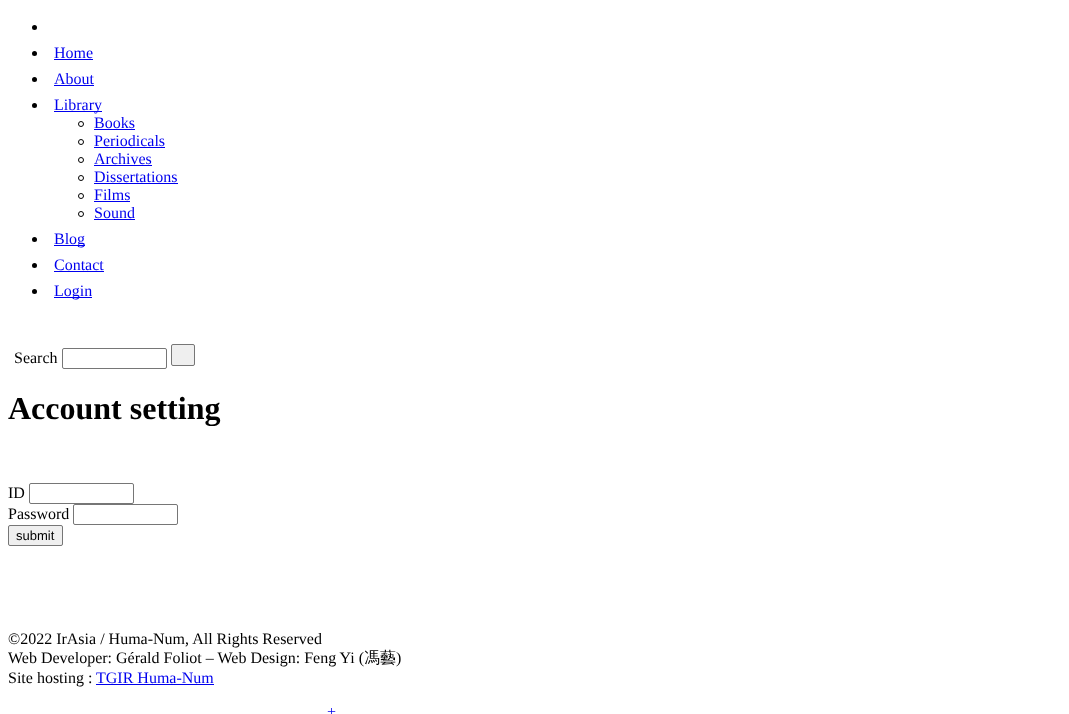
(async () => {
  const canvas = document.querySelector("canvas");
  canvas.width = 1069;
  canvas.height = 714;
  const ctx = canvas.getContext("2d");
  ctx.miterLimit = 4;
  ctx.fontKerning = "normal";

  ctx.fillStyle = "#ffffff";
  ctx.fillRect(0, 0, 1069, 714);
  ctx.fillStyle = "#000000";
  ctx.beginPath();
  ctx.arc(34.5, 27.5, 2.5, 0, Math.PI * 2);
  ctx.fill();
  ctx.beginPath();
  ctx.arc(34.5, 53.5, 2.5, 0, Math.PI * 2);
  ctx.fill();
  ctx.fillStyle = "#0000ee";
  ctx.fillRect(54, 59, 39, 1);
  ctx.fillStyle = "#000000";
  ctx.beginPath();
  ctx.arc(34.5, 79.5, 2.5, 0, Math.PI * 2);
  ctx.fill();
  ctx.fillStyle = "#0000ee";
  ctx.fillRect(54, 85, 40, 1);
  ctx.fillStyle = "#000000";
  ctx.beginPath();
  ctx.arc(34.5, 105.5, 2.5, 0, Math.PI * 2);
  ctx.fill();
  ctx.fillStyle = "#0000ee";
  ctx.fillRect(54, 111, 48, 1);
  ctx.beginPath();
  ctx.arc(81, 124, 2.5, 0, Math.PI * 2);
  ctx.strokeStyle = "#000000";
  ctx.stroke();
  ctx.fillRect(94, 129, 41, 1);
  ctx.beginPath();
  ctx.arc(81, 142, 2.5, 0, Math.PI * 2);
  ctx.stroke();
  ctx.fillRect(94, 147, 71, 1);
  ctx.beginPath();
  ctx.arc(81, 160, 2.5, 0, Math.PI * 2);
  ctx.stroke();
  ctx.fillRect(94, 165, 58, 1);
  ctx.beginPath();
  ctx.arc(81, 178, 2.5, 0, Math.PI * 2);
  ctx.stroke();
  ctx.fillRect(94, 183, 84, 1);
  ctx.beginPath();
  ctx.arc(81, 196, 2.5, 0, Math.PI * 2);
  ctx.stroke();
  ctx.fillRect(94, 201, 36, 1);
  ctx.beginPath();
  ctx.arc(81, 214, 2.5, 0, Math.PI * 2);
  ctx.stroke();
  ctx.fillRect(94, 219, 41, 1);
  ctx.fillStyle = "#000000";
  ctx.beginPath();
  ctx.arc(34.5, 239.5, 2.5, 0, Math.PI * 2);
  ctx.fill();
  ctx.fillStyle = "#0000ee";
  ctx.fillRect(54, 245, 31, 1);
  ctx.fillStyle = "#000000";
  ctx.beginPath();
  ctx.arc(34.5, 265.5, 2.5, 0, Math.PI * 2);
  ctx.fill();
  ctx.fillStyle = "#0000ee";
  ctx.fillRect(54, 271, 50, 1);
  ctx.fillStyle = "#000000";
  ctx.beginPath();
  ctx.arc(34.5, 291.5, 2.5, 0, Math.PI * 2);
  ctx.fill();
  ctx.fillStyle = "#0000ee";
  ctx.fillRect(54, 297, 38, 1);
  ctx.beginPath();
  ctx.roundRect(62.5, 348.5, 104, 20, 1.5);
  ctx.strokeStyle = "#767676";
  ctx.stroke();
  ctx.fillStyle = "#efefef";
  ctx.beginPath();
  ctx.roundRect(171.5, 344.5, 23, 21, 1.5);
  ctx.fill();
  ctx.stroke();
  ctx.beginPath();
  ctx.roundRect(29.5, 483.5, 104, 20, 1.5);
  ctx.stroke();
  ctx.beginPath();
  ctx.roundRect(73.5, 504.5, 104, 20, 1.5);
  ctx.stroke();
  ctx.beginPath();
  ctx.roundRect(8.5, 525.5, 54, 20, 1.5);
  ctx.fill();
  ctx.stroke();
  ctx.fillStyle = "#0000ee";
  ctx.fillRect(96, 684, 118, 1);
  ctx.font = "16px Liberation Serif";
  for (const [text, x, y] of [
    ["Home", 54, 58],
    ["About", 54, 84],
    ["Library", 54, 110],
    ["Books", 94, 128],
    ["Periodicals", 94, 146],
    ["Archives", 94, 164],
    ["Dissertations", 94, 182],
    ["Films", 94, 200],
    ["Sound", 94, 218],
    ["Blog", 54, 244],
    ["Contact", 54, 270],
    ["Login", 54, 296],
  ]) {
    ctx.fillText(text, x, y);
  }
  ctx.fillStyle = "#000000";
  ctx.fillText("Search", 14, 363);
  ctx.font = "bold 32px Liberation Serif";
  ctx.fillText("Account setting", 8, 419);
  ctx.font = "16px Liberation Serif";
  ctx.fillText("ID", 8, 498);
  ctx.fillText("Password", 8, 519);
  ctx.font = "13px Liberation Sans";
  ctx.fillText("submit", 16, 540);
  ctx.font = "16px Liberation Serif";
  ctx.fillText("©2022 IrAsia / Huma-Num, All Rights Reserved", 8, 644);
  ctx.fillText("Web Developer: Gérald Foliot – Web Design: Feng Yi (", 8, 663);
  ctx.font = "500 16px WenQuanYi Zen Hei";
  ctx.fillText("馮藝", 364, 663);
  ctx.font = "16px Liberation Serif";
  ctx.fillText(")", 396, 663);
  ctx.fillText("Site hosting :", 8, 683);
  ctx.fillStyle = "#0000ee";
  ctx.fillText("TGIR Huma-Num", 96, 683);
  ctx.fillText("+", 327, 717);
})();
